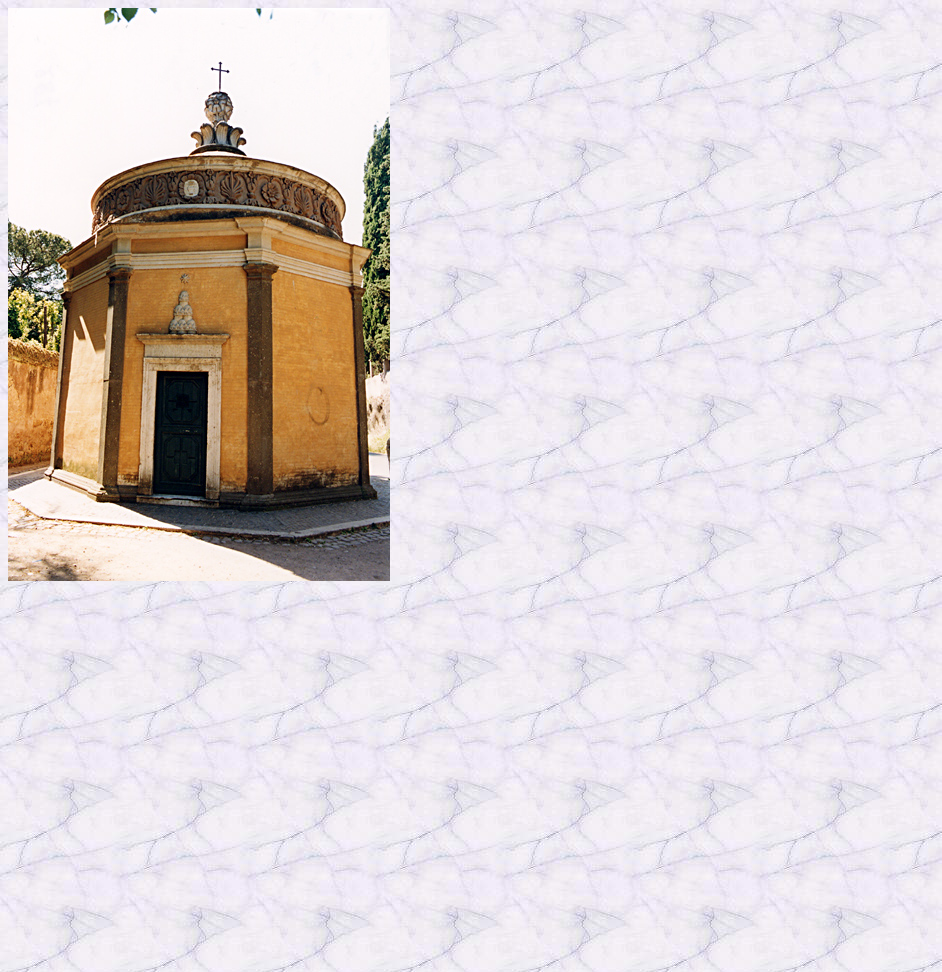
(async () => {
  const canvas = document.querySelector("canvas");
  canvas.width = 942;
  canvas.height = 972;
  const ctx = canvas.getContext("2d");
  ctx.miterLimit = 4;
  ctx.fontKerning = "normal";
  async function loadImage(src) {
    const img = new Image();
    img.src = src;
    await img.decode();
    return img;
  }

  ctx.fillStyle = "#ffffff";
  ctx.fillRect(0, 0, 942, 972);
  ctx.drawImage(await loadImage("img/1.png"), 0, 0, 942, 972);
  ctx.drawImage(await loadImage("img/2.png"), 8, 8, 382, 573);
})();
